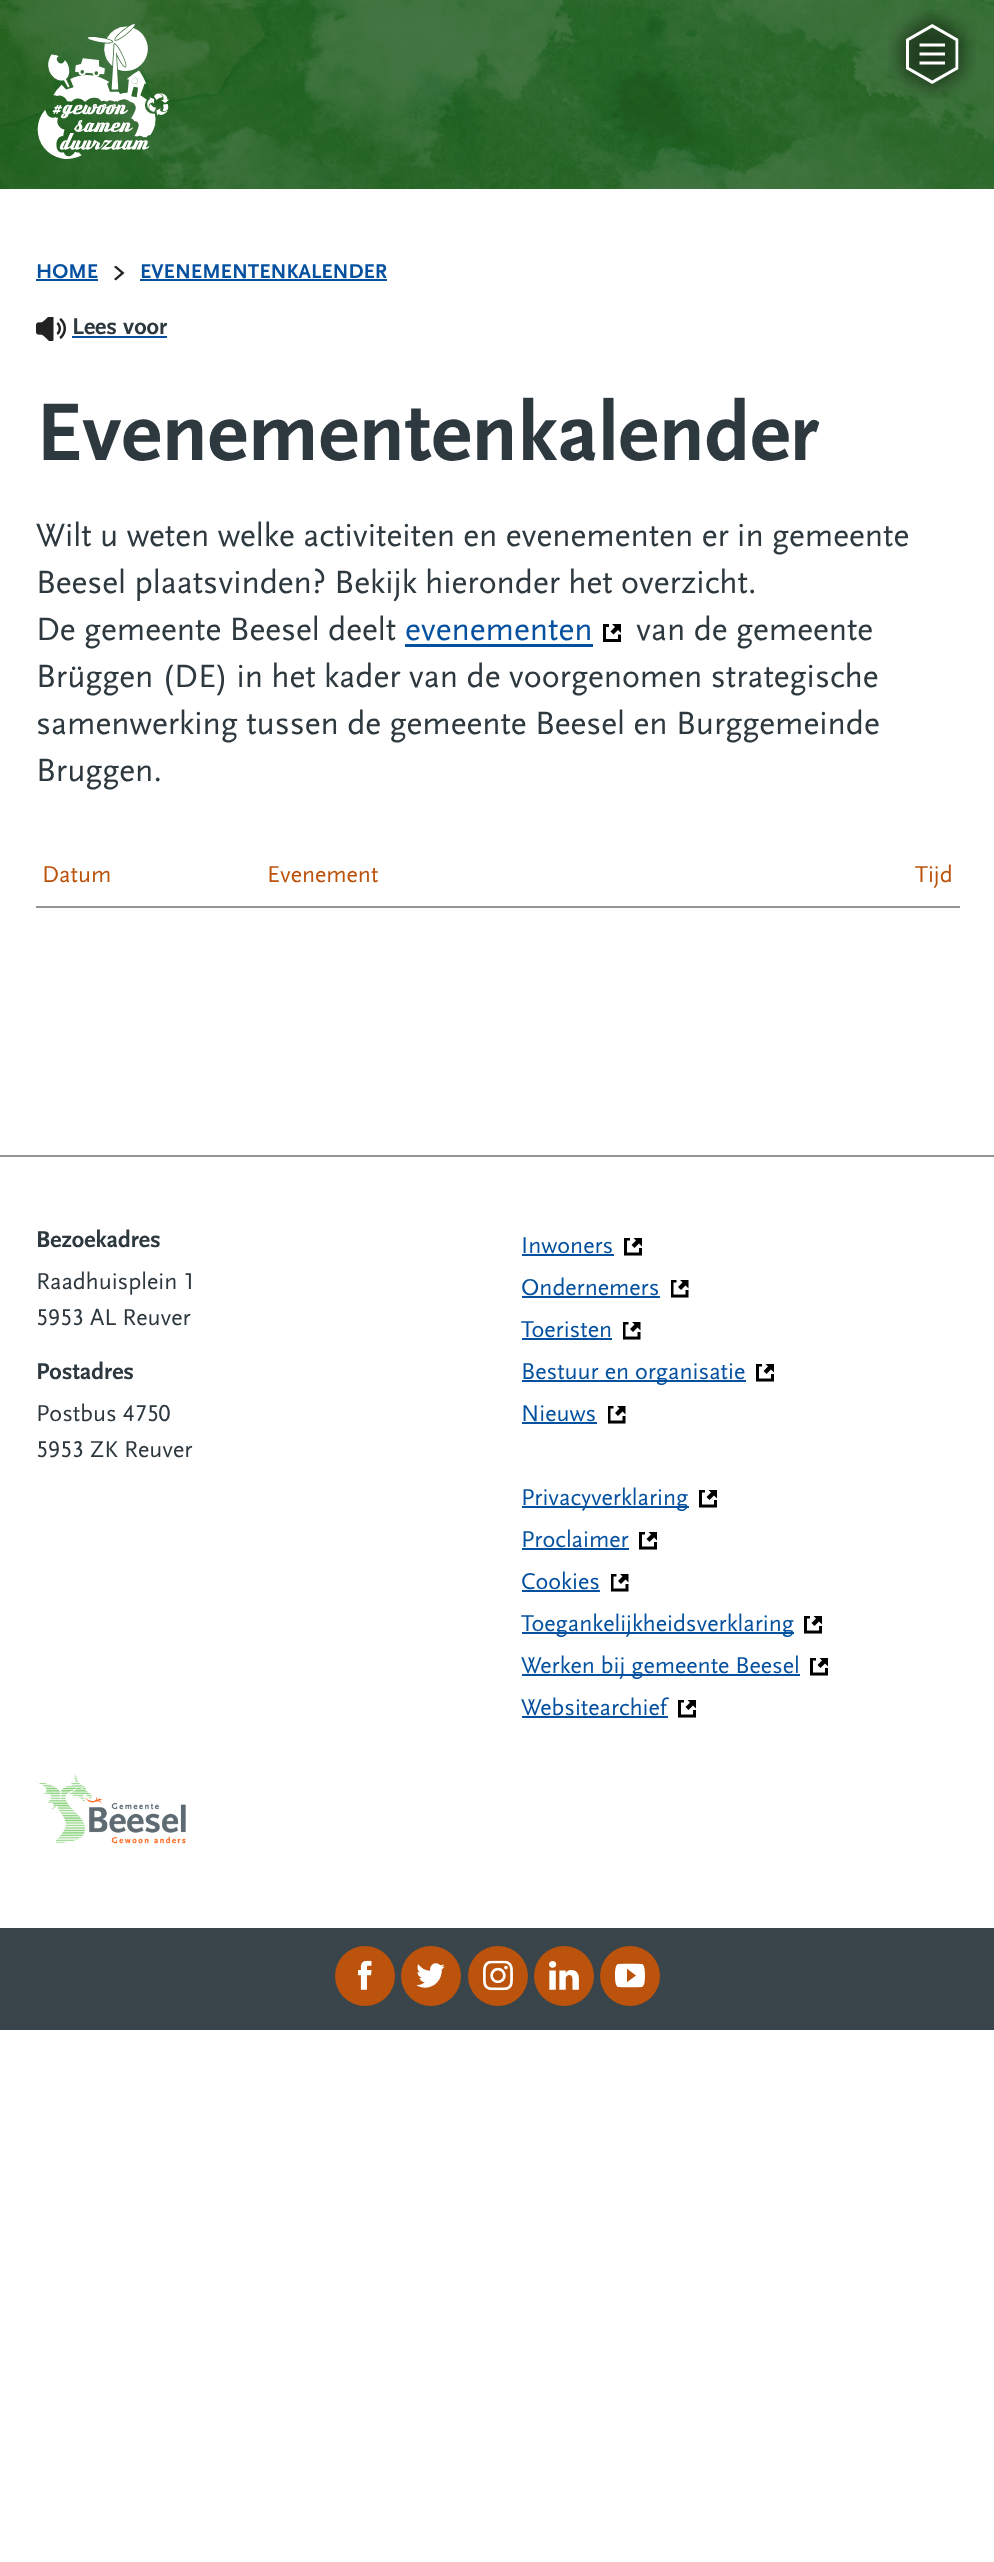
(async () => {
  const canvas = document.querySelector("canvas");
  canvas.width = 994;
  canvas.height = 2562;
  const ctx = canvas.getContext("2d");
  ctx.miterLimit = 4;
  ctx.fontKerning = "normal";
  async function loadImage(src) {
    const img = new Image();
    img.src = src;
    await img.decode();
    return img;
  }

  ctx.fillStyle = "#ffffff";
  ctx.fillRect(0, 0, 994, 2562);
  ctx.drawImage(await loadImage("img/1.png"), 0, 0, 994, 189);
  ctx.drawImage(await loadImage("img/2.png"), 37, 24, 133, 135);
  ctx.drawImage(await loadImage("img/3.png"), 888, 9, 88, 90);
  ctx.fillStyle = "#05519f";
  ctx.fillRect(36, 279, 62, 2);
  ctx.drawImage(await loadImage("img/4.png"), 114, 266, 11, 15);
  ctx.fillRect(140, 279, 247, 2);
  ctx.drawImage(await loadImage("img/5.png"), 36, 317, 30, 24);
  ctx.fillRect(72, 336, 95, 2);
  ctx.drawImage(await loadImage("img/6.png"), 603, 624, 18, 18);
  for (const [x, y, w, h, color] of [
    [405, 644, 188, 3, "#05519f"],
    [36, 906, 924, 2, "#959595"],
    [0, 1155, 994, 2, "#959595"],
  ]) {
    ctx.fillStyle = color;
    ctx.fillRect(x, y, w, h);
  }
  ctx.drawImage(await loadImage("img/7.png"), 624, 1238, 18, 18);
  ctx.fillStyle = "#05519f";
  ctx.fillRect(522, 1254, 92, 2);
  ctx.drawImage(await loadImage("img/8.png"), 671, 1280, 18, 18);
  ctx.fillRect(522, 1296, 138, 2);
  ctx.drawImage(await loadImage("img/8.png"), 623, 1322, 18, 18);
  ctx.fillRect(522, 1338, 90, 2);
  ctx.drawImage(await loadImage("img/7.png"), 756, 1364, 18, 18);
  ctx.fillRect(522, 1380, 224, 2);
  ctx.drawImage(await loadImage("img/8.png"), 608, 1406, 18, 18);
  ctx.fillRect(522, 1422, 75, 2);
  ctx.drawImage(await loadImage("img/7.png"), 699, 1490, 18, 18);
  ctx.fillRect(522, 1506, 167, 2);
  ctx.drawImage(await loadImage("img/7.png"), 639, 1532, 18, 18);
  ctx.fillRect(522, 1548, 107, 2);
  ctx.drawImage(await loadImage("img/8.png"), 611, 1574, 18, 18);
  ctx.fillRect(522, 1590, 78, 2);
  ctx.drawImage(await loadImage("img/7.png"), 804, 1616, 18, 18);
  ctx.fillRect(522, 1632, 272, 2);
  ctx.drawImage(await loadImage("img/7.png"), 810, 1658, 18, 18);
  ctx.fillRect(522, 1674, 278, 2);
  ctx.drawImage(await loadImage("img/7.png"), 678, 1700, 18, 18);
  ctx.fillRect(522, 1716, 146, 2);
  ctx.drawImage(await loadImage("img/9.png"), 36, 1774, 150, 70);
  ctx.fillStyle = "#3a444b";
  ctx.fillRect(0, 1928, 994, 102);
  ctx.fillStyle = "#bb530c";
  ctx.beginPath();
  ctx.arc(365, 1976, 30, 0, Math.PI * 2);
  ctx.fill();
  ctx.drawImage(await loadImage("img/10.png"), 358, 1960, 14, 30);
  ctx.beginPath();
  ctx.arc(431, 1976, 30, 0, Math.PI * 2);
  ctx.fill();
  ctx.drawImage(await loadImage("img/11.png"), 416, 1963, 29, 25);
  ctx.beginPath();
  ctx.arc(498, 1976, 30, 0, Math.PI * 2);
  ctx.fill();
  ctx.drawImage(await loadImage("img/12.png"), 483, 1960, 30, 31);
  ctx.beginPath();
  ctx.arc(564, 1976, 30, 0, Math.PI * 2);
  ctx.fill();
  ctx.drawImage(await loadImage("img/13.png"), 549, 1961, 30, 29);
  ctx.beginPath();
  ctx.arc(630, 1976, 30, 0, Math.PI * 2);
  ctx.fill();
  ctx.drawImage(await loadImage("img/14.png"), 615, 1963, 30, 25);
  ctx.font = "21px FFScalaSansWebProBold";
  ctx.fillStyle = "#05519f";
  ctx.fillText("HOME", 36, 278);
  ctx.fillText("EVENEMENTENKALENDER", 140, 278);
  ctx.font = "24px FFScalaSansWebProBold";
  ctx.fillStyle = "#2d383f";
  ctx.fillText("Lees voor", 72, 334);
  ctx.font = "85.25px FFScalaSansWebProBold";
  ctx.fillText("Evenementenkalender", 36, 460);
  ctx.font = "33.6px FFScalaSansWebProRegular";
  for (const [text, x, y] of [
    ["Wilt u weten welke activiteiten en evenementen er in gemeente", 36, 546],
    ["Beesel plaatsvinden? Bekijk hieronder het overzicht.", 36, 593],
    ["De gemeente Beesel deelt", 36, 640],
  ]) {
    ctx.fillText(text, x, y);
  }
  ctx.fillStyle = "#05519f";
  ctx.fillText("evenementen", 405, 640);
  ctx.fillStyle = "#2d383f";
  for (const [text, x, y] of [
    ["van de gemeente", 636, 640],
    ["Brüggen (DE) in het kader van de voorgenomen strategische", 36, 687],
    ["samenwerking tussen de gemeente Beesel en Burggemeinde", 36, 734],
    ["Bruggen.", 36, 781],
  ]) {
    ctx.fillText(text, x, y);
  }
  ctx.font = "24px FFScalaSansWebProRegular";
  ctx.fillStyle = "#bb530c";
  for (const [text, x, y] of [
    ["Datum", 42, 882],
    ["Evenement", 267, 882],
    ["Tijd", 915, 882],
  ]) {
    ctx.fillText(text, x, y);
  }
  ctx.font = "24px FFScalaSansWebProBold";
  ctx.fillStyle = "#2d383f";
  ctx.fillText("Bezoekadres", 36, 1247);
  ctx.font = "24px FFScalaSansWebProRegular";
  ctx.fillText("Raadhuisplein 1", 36, 1289);
  ctx.fillText("5953 AL Reuver", 36, 1325);
  ctx.font = "24px FFScalaSansWebProBold";
  ctx.fillText("Postadres", 36, 1379);
  ctx.font = "24px FFScalaSansWebProRegular";
  ctx.fillText("Postbus 4750", 36, 1421);
  ctx.fillText("5953 ZK Reuver", 36, 1457);
  ctx.fillStyle = "#05519f";
  for (const [text, x, y] of [
    ["Inwoners", 521, 1253],
    ["Ondernemers", 521, 1295],
    ["Toeristen", 521, 1337],
    ["Bestuur en organisatie", 521, 1379],
    ["Nieuws", 521, 1421],
    ["Privacyverklaring", 521, 1505],
    ["Proclaimer", 521, 1547],
    ["Cookies", 521, 1589],
    ["Toegankelijkheidsverklaring", 521, 1631],
    ["Werken bij gemeente Beesel", 521, 1673],
    ["Websitearchief", 521, 1715],
  ]) {
    ctx.fillText(text, x, y);
  }
})();
